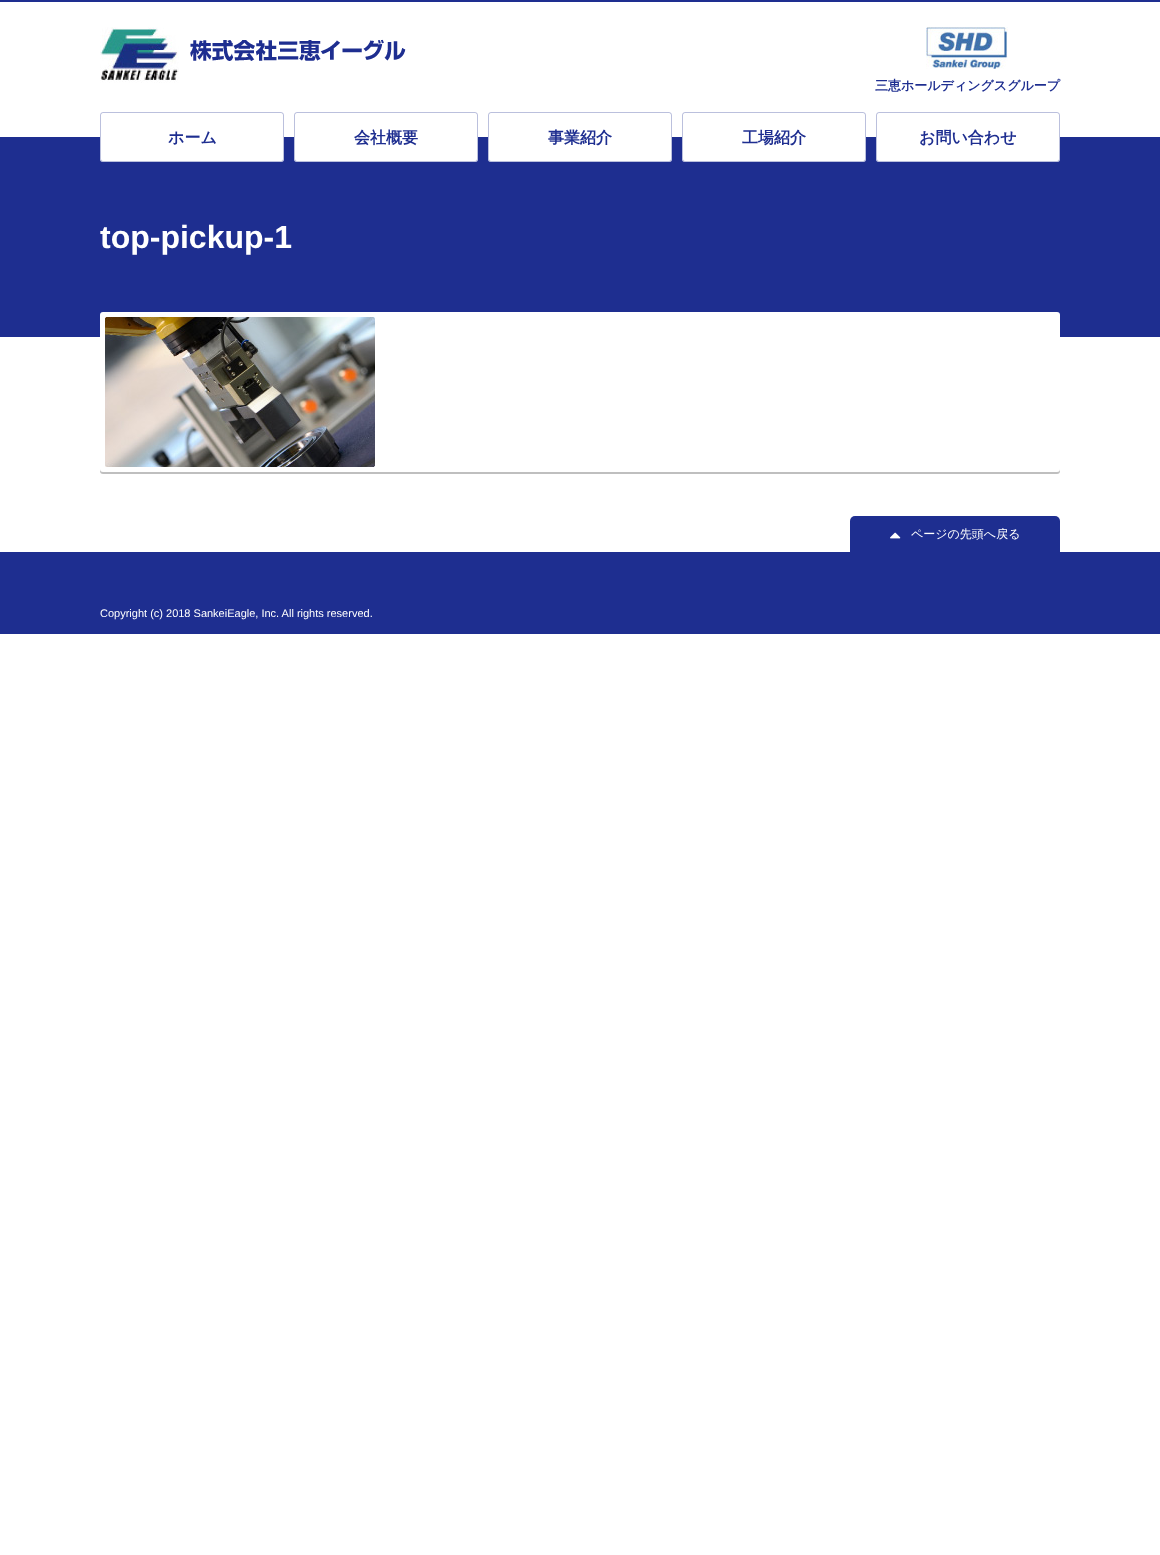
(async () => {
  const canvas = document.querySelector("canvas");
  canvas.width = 1160;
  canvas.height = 1555;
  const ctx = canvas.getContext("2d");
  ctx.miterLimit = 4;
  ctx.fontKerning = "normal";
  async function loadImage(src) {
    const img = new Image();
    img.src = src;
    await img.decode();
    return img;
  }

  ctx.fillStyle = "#ffffff";
  ctx.fillRect(0, 0, 1160, 1555);
  ctx.fillStyle = "#1e2e90";
  ctx.fillRect(0, 0, 1160, 2);
  ctx.drawImage(await loadImage("img/1.png"), 100, 27, 79, 56);
  ctx.drawImage(await loadImage("img/2.png"), 190, 39, 216, 22);
  ctx.drawImage(await loadImage("img/3.png"), 926, 27, 82, 42);
  ctx.fillRect(0, 137, 1160, 200);
  ctx.fillStyle = "#ffffff";
  ctx.beginPath();
  ctx.roundRect(100, 112, 184, 50, 3);
  ctx.fill();
  ctx.beginPath();
  ctx.roundRect(100.5, 112.5, 183, 49, 2.5);
  ctx.strokeStyle = "rgba(30, 46, 144, 0.3)";
  ctx.stroke();
  ctx.beginPath();
  ctx.roundRect(294, 112, 184, 50, 3);
  ctx.fill();
  ctx.beginPath();
  ctx.roundRect(294.5, 112.5, 183, 49, 2.5);
  ctx.stroke();
  ctx.beginPath();
  ctx.roundRect(488, 112, 184, 50, 3);
  ctx.fill();
  ctx.beginPath();
  ctx.roundRect(488.5, 112.5, 183, 49, 2.5);
  ctx.stroke();
  ctx.beginPath();
  ctx.roundRect(682, 112, 184, 50, 3);
  ctx.fill();
  ctx.beginPath();
  ctx.roundRect(682.5, 112.5, 183, 49, 2.5);
  ctx.stroke();
  ctx.beginPath();
  ctx.roundRect(876, 112, 184, 50, 3);
  ctx.fill();
  ctx.beginPath();
  ctx.roundRect(876.5, 112.5, 183, 49, 2.5);
  ctx.stroke();
  ctx.fillStyle = "rgba(0, 0, 0, 0.25)";
  ctx.filter = "blur(0.5px)";
  ctx.beginPath();
  ctx.roundRect(100, 314, 960, 160, 3);
  ctx.fill();
  ctx.filter = "none";
  ctx.fillStyle = "#ffffff";
  ctx.beginPath();
  ctx.roundRect(100, 312, 960, 160, 3);
  ctx.fill();
  ctx.drawImage(await loadImage("img/4.png"), 105, 317, 270, 150);
  ctx.fillStyle = "#1e2e90";
  ctx.fillRect(0, 552, 1160, 82);
  ctx.beginPath();
  ctx.roundRect(850, 516, 210, 36, [5, 5, 0, 0]);
  ctx.fill();
  ctx.drawImage(await loadImage("img/5.png"), 890, 532, 11, 7);
  ctx.font = "bold 13px WenQuanYi Zen Hei";
  ctx.fillText("三恵ホールディングスグループ", 875, 90);
  ctx.font = "bold 16px WenQuanYi Zen Hei";
  for (const [text, x, y] of [
    ["ホーム", 168, 143],
    ["会社概要", 354, 143],
    ["事業紹介", 548, 143],
    ["工場紹介", 742, 143],
    ["お問い合わせ", 919, 143],
  ]) {
    ctx.fillText(text, x, y);
  }
  ctx.font = "bold 32px Liberation Sans";
  ctx.fillStyle = "#ffffff";
  ctx.fillText("top-pickup-1", 100, 248);
  ctx.font = "500 12px WenQuanYi Zen Hei";
  ctx.fillText("ページの先頭へ戻る", 911, 538);
  ctx.font = "11px Liberation Sans";
  ctx.fillText("Copyright (c) 2018 SankeiEagle, Inc. All rights reserved.", 100, 617);
})();
